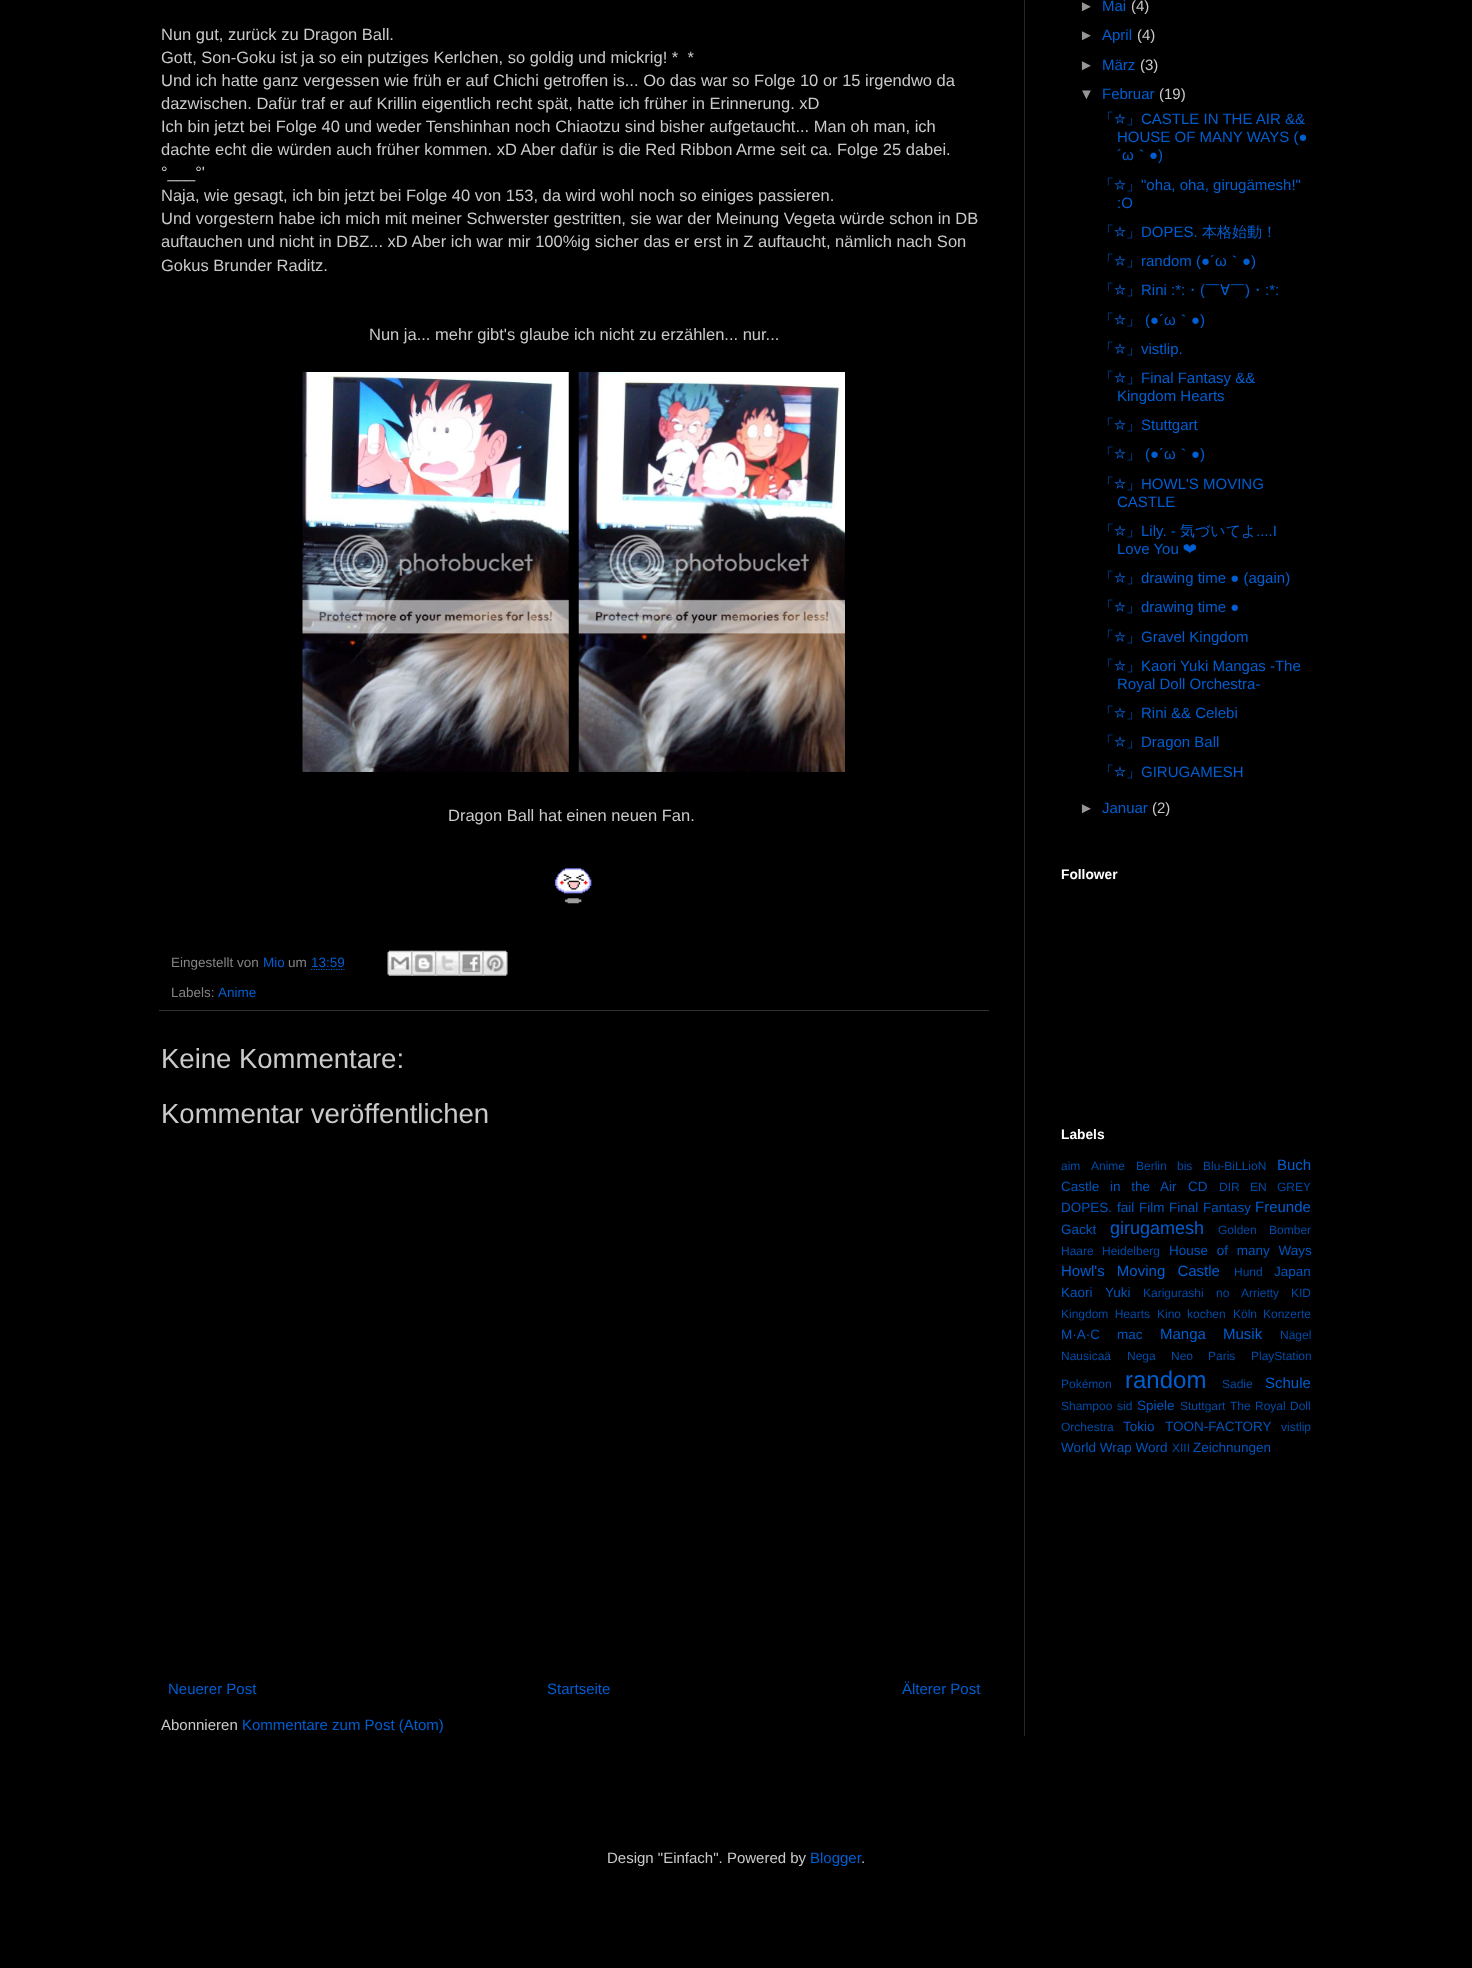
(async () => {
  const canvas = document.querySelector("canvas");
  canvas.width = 1472;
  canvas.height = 1968;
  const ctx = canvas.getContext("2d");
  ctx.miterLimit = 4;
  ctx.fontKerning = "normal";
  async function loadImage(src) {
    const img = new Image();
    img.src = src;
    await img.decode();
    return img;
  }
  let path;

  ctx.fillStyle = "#000000";
  ctx.fillRect(0, 0, 1472, 1968);
  ctx.drawImage(await loadImage("img/1.png"), 302, 372, 267, 400);
  ctx.drawImage(await loadImage("img/2.png"), 578, 372, 267, 400);
  ctx.drawImage(await loadImage("img/3.png"), 554, 868, 38, 36);
  ctx.fillStyle = "#303030";
  ctx.fillRect(159, 1010, 830, 1);
  path = new Path2D("M311 969.5H344.5");
  ctx.strokeStyle = "#005ed1";
  ctx.lineWidth = 1.2;
  ctx.setLineDash([1.25, 1.25]);
  ctx.stroke(path);
  ctx.drawImage(await loadImage("img/4.png"), 387, 950, 26, 26);
  ctx.drawImage(await loadImage("img/5.png"), 411, 950, 26, 26);
  ctx.drawImage(await loadImage("img/6.png"), 435, 950, 25, 26);
  ctx.drawImage(await loadImage("img/7.png"), 458, 950, 26, 26);
  ctx.drawImage(await loadImage("img/8.png"), 482, 950, 26, 26);
  ctx.fillStyle = "#272727";
  ctx.fillRect(1024, 0, 1, 1736);
  ctx.font = "16.5px Liberation Sans";
  ctx.fillStyle = "#cacaca";
  for (const [text, x, y] of [
    ["Nun gut, zurück zu Dragon Ball.", 161, 40],
    ["Gott, Son-Goku ist ja so ein putziges Kerlchen, so goldig und mickrig! *  *", 161, 63],
    ["Und ich hatte ganz vergessen wie früh er auf Chichi getroffen is... Oo das war so Folge 10 or 15 irgendwo da", 161, 86],
    ["dazwischen. Dafür traf er auf Krillin eigentlich recht spät, hatte ich früher in Erinnerung. xD", 161, 109],
    ["Ich bin jetzt bei Folge 40 und weder Tenshinhan noch Chiaotzu sind bisher aufgetaucht... Man oh man, ich", 161, 132],
    ["dachte echt die würden auch früher kommen. xD Aber dafür is die Red Ribbon Arme seit ca. Folge 25 dabei.", 161, 155],
    ["°___°'", 161, 178],
    ["Naja, wie gesagt, ich bin jetzt bei Folge 40 von 153, da wird wohl noch so einiges passieren.", 161, 201],
    ["Und vorgestern habe ich mich mit meiner Schwerster gestritten, sie war der Meinung Vegeta würde schon in DB", 161, 224],
    ["auftauchen und nicht in DBZ... xD Aber ich war mir 100%ig sicher das er erst in Z auftaucht, nämlich nach Son", 161, 247],
    ["Gokus Brunder Raditz.", 161, 271],
    ["Nun ja... mehr gibt's glaube ich nicht zu erzählen... nur...", 369, 340],
    ["Dragon Ball hat einen neuen Fan.", 448, 821],
  ]) {
    ctx.fillText(text, x, y);
  }
  ctx.font = "13.5px Liberation Sans";
  ctx.fillStyle = "#848484";
  ctx.fillText("Eingestellt von", 171, 967);
  ctx.fillStyle = "#005ed1";
  ctx.fillText("Mio", 263, 967);
  ctx.fillStyle = "#848484";
  ctx.fillText("um", 288, 967);
  ctx.fillStyle = "#005ed1";
  ctx.fillText("13:59", 311, 967);
  ctx.fillStyle = "#848484";
  ctx.fillText("Labels:", 171, 997);
  ctx.fillStyle = "#005ed1";
  ctx.fillText("Anime", 218, 997);
  ctx.font = "27.5px Liberation Sans";
  ctx.fillStyle = "#cacaca";
  ctx.fillText("Keine Kommentare:", 161, 1068);
  ctx.fillText("Kommentar veröffentlichen", 161, 1123);
  ctx.font = "15px Liberation Sans";
  ctx.fillStyle = "#005ed1";
  for (const [text, x, y] of [
    ["Neuerer Post", 168, 1694],
    ["Startseite", 547, 1694],
    ["Älterer Post", 902, 1694],
  ]) {
    ctx.fillText(text, x, y);
  }
  ctx.fillStyle = "#cacaca";
  ctx.fillText("Abonnieren", 161, 1730);
  ctx.fillStyle = "#005ed1";
  ctx.fillText("Kommentare zum Post (Atom)", 242, 1730);
  ctx.fillStyle = "#969696";
  ctx.fillText("►", 1079, 11);
  ctx.fillStyle = "#005ed1";
  ctx.fillText("Mai", 1102, 11);
  ctx.fillStyle = "#cacaca";
  ctx.fillText("(4)", 1131, 11);
  ctx.fillStyle = "#969696";
  ctx.fillText("►", 1079, 40);
  ctx.fillStyle = "#005ed1";
  ctx.fillText("April", 1102, 40);
  ctx.fillStyle = "#cacaca";
  ctx.fillText("(4)", 1137, 40);
  ctx.fillStyle = "#969696";
  ctx.fillText("►", 1079, 70);
  ctx.fillStyle = "#005ed1";
  ctx.fillText("März", 1102, 70);
  ctx.fillStyle = "#cacaca";
  ctx.fillText("(3)", 1140, 70);
  ctx.fillStyle = "#969696";
  ctx.fillText("▼", 1079, 99);
  ctx.fillStyle = "#005ed1";
  ctx.fillText("Februar", 1102, 99);
  ctx.fillStyle = "#cacaca";
  ctx.fillText("(19)", 1159, 99);
  ctx.font = "500 15px WenQuanYi Zen Hei";
  ctx.fillStyle = "#005ed1";
  ctx.fillText("「", 1099, 124);
  ctx.font = "15px FreeSans";
  ctx.fillText("☆", 1114, 124);
  ctx.font = "500 15px WenQuanYi Zen Hei";
  ctx.fillText("」", 1126, 124);
  ctx.font = "15px Liberation Sans";
  for (const [text, x, y] of [
    ["CASTLE IN THE AIR &&", 1141, 124],
    ["HOUSE OF MANY WAYS (●", 1117, 142],
    ["´ω", 1117, 160],
  ]) {
    ctx.fillText(text, x, y);
  }
  ctx.font = "500 15px WenQuanYi Zen Hei";
  ctx.fillText("｀", 1134, 160);
  ctx.font = "15px Liberation Sans";
  ctx.fillText("●)", 1149, 160);
  ctx.font = "500 15px WenQuanYi Zen Hei";
  ctx.fillText("「", 1099, 190);
  ctx.font = "15px FreeSans";
  ctx.fillText("☆", 1114, 190);
  ctx.font = "500 15px WenQuanYi Zen Hei";
  ctx.fillText("」", 1126, 190);
  ctx.font = "15px Liberation Sans";
  ctx.fillText("\"oha, oha, girugämesh!\"", 1141, 190);
  ctx.fillText(":O", 1117, 208);
  ctx.font = "500 15px WenQuanYi Zen Hei";
  ctx.fillText("「", 1099, 237);
  ctx.font = "15px FreeSans";
  ctx.fillText("☆", 1114, 237);
  ctx.font = "500 15px WenQuanYi Zen Hei";
  ctx.fillText("」", 1126, 237);
  ctx.font = "15px Liberation Sans";
  ctx.fillText("DOPES.", 1141, 237);
  ctx.font = "500 15px WenQuanYi Zen Hei";
  ctx.fillText("本格始動！", 1202, 237);
  ctx.fillText("「", 1099, 266);
  ctx.font = "15px FreeSans";
  ctx.fillText("☆", 1114, 266);
  ctx.font = "500 15px WenQuanYi Zen Hei";
  ctx.fillText("」", 1126, 266);
  ctx.font = "15px Liberation Sans";
  ctx.fillText("random (●´ω", 1141, 266);
  ctx.font = "500 15px WenQuanYi Zen Hei";
  ctx.fillText("｀", 1227, 266);
  ctx.font = "15px Liberation Sans";
  ctx.fillText("●)", 1242, 266);
  ctx.font = "500 15px WenQuanYi Zen Hei";
  ctx.fillText("「", 1099, 295);
  ctx.font = "15px FreeSans";
  ctx.fillText("☆", 1114, 295);
  ctx.font = "500 15px WenQuanYi Zen Hei";
  ctx.fillText("」", 1126, 295);
  ctx.font = "15px Liberation Sans";
  ctx.fillText("Rini :*:", 1141, 295);
  ctx.font = "500 15px WenQuanYi Zen Hei";
  ctx.fillText("・", 1185, 295);
  ctx.font = "15px Liberation Sans";
  ctx.fillText("(", 1200, 295);
  ctx.font = "500 15px WenQuanYi Zen Hei";
  ctx.fillText("￣", 1205, 295);
  ctx.font = "15px FreeSans";
  ctx.fillText("∀", 1220, 295);
  ctx.font = "500 15px WenQuanYi Zen Hei";
  ctx.fillText("￣", 1230, 295);
  ctx.font = "15px Liberation Sans";
  ctx.fillText(")", 1245, 295);
  ctx.font = "500 15px WenQuanYi Zen Hei";
  ctx.fillText("・", 1250, 295);
  ctx.font = "15px Liberation Sans";
  ctx.fillText(":*:", 1265, 295);
  ctx.font = "500 15px WenQuanYi Zen Hei";
  ctx.fillText("「", 1099, 325);
  ctx.font = "15px FreeSans";
  ctx.fillText("☆", 1114, 325);
  ctx.font = "500 15px WenQuanYi Zen Hei";
  ctx.fillText("」", 1126, 325);
  ctx.font = "15px Liberation Sans";
  ctx.fillText("(●´ω", 1145, 325);
  ctx.font = "500 15px WenQuanYi Zen Hei";
  ctx.fillText("｀", 1176, 325);
  ctx.font = "15px Liberation Sans";
  ctx.fillText("●)", 1191, 325);
  ctx.font = "500 15px WenQuanYi Zen Hei";
  ctx.fillText("「", 1099, 354);
  ctx.font = "15px FreeSans";
  ctx.fillText("☆", 1114, 354);
  ctx.font = "500 15px WenQuanYi Zen Hei";
  ctx.fillText("」", 1126, 354);
  ctx.font = "15px Liberation Sans";
  ctx.fillText("vistlip.", 1141, 354);
  ctx.font = "500 15px WenQuanYi Zen Hei";
  ctx.fillText("「", 1099, 383);
  ctx.font = "15px FreeSans";
  ctx.fillText("☆", 1114, 383);
  ctx.font = "500 15px WenQuanYi Zen Hei";
  ctx.fillText("」", 1126, 383);
  ctx.font = "15px Liberation Sans";
  ctx.fillText("Final Fantasy &&", 1141, 383);
  ctx.fillText("Kingdom Hearts", 1117, 401);
  ctx.font = "500 15px WenQuanYi Zen Hei";
  ctx.fillText("「", 1099, 430);
  ctx.font = "15px FreeSans";
  ctx.fillText("☆", 1114, 430);
  ctx.font = "500 15px WenQuanYi Zen Hei";
  ctx.fillText("」", 1126, 430);
  ctx.font = "15px Liberation Sans";
  ctx.fillText("Stuttgart", 1141, 430);
  ctx.font = "500 15px WenQuanYi Zen Hei";
  ctx.fillText("「", 1099, 459);
  ctx.font = "15px FreeSans";
  ctx.fillText("☆", 1114, 459);
  ctx.font = "500 15px WenQuanYi Zen Hei";
  ctx.fillText("」", 1126, 459);
  ctx.font = "15px Liberation Sans";
  ctx.fillText("(●´ω", 1145, 459);
  ctx.font = "500 15px WenQuanYi Zen Hei";
  ctx.fillText("｀", 1176, 459);
  ctx.font = "15px Liberation Sans";
  ctx.fillText("●)", 1191, 459);
  ctx.font = "500 15px WenQuanYi Zen Hei";
  ctx.fillText("「", 1099, 489);
  ctx.font = "15px FreeSans";
  ctx.fillText("☆", 1114, 489);
  ctx.font = "500 15px WenQuanYi Zen Hei";
  ctx.fillText("」", 1126, 489);
  ctx.font = "15px Liberation Sans";
  ctx.fillText("HOWL'S MOVING", 1141, 489);
  ctx.fillText("CASTLE", 1117, 507);
  ctx.font = "500 15px WenQuanYi Zen Hei";
  ctx.fillText("「", 1099, 536);
  ctx.font = "15px FreeSans";
  ctx.fillText("☆", 1114, 536);
  ctx.font = "500 15px WenQuanYi Zen Hei";
  ctx.fillText("」", 1126, 536);
  ctx.font = "15px Liberation Sans";
  ctx.fillText("Lily. -", 1141, 536);
  ctx.font = "500 15px WenQuanYi Zen Hei";
  ctx.fillText("気づいてよ", 1180, 536);
  ctx.font = "15px Liberation Sans";
  ctx.fillText("....I", 1256, 536);
  ctx.fillText("Love You", 1117, 554);
  ctx.font = "15px FreeSans";
  ctx.fillText("❤", 1183, 554);
  ctx.font = "500 15px WenQuanYi Zen Hei";
  ctx.fillText("「", 1099, 583);
  ctx.font = "15px FreeSans";
  ctx.fillText("☆", 1114, 583);
  ctx.font = "500 15px WenQuanYi Zen Hei";
  ctx.fillText("」", 1126, 583);
  ctx.font = "15px Liberation Sans";
  ctx.fillText("drawing time ● (again)", 1141, 583);
  ctx.font = "500 15px WenQuanYi Zen Hei";
  ctx.fillText("「", 1099, 612);
  ctx.font = "15px FreeSans";
  ctx.fillText("☆", 1114, 612);
  ctx.font = "500 15px WenQuanYi Zen Hei";
  ctx.fillText("」", 1126, 612);
  ctx.font = "15px Liberation Sans";
  ctx.fillText("drawing time ●", 1141, 612);
  ctx.font = "500 15px WenQuanYi Zen Hei";
  ctx.fillText("「", 1099, 642);
  ctx.font = "15px FreeSans";
  ctx.fillText("☆", 1114, 642);
  ctx.font = "500 15px WenQuanYi Zen Hei";
  ctx.fillText("」", 1126, 642);
  ctx.font = "15px Liberation Sans";
  ctx.fillText("Gravel Kingdom", 1141, 642);
  ctx.font = "500 15px WenQuanYi Zen Hei";
  ctx.fillText("「", 1099, 671);
  ctx.font = "15px FreeSans";
  ctx.fillText("☆", 1114, 671);
  ctx.font = "500 15px WenQuanYi Zen Hei";
  ctx.fillText("」", 1126, 671);
  ctx.font = "15px Liberation Sans";
  ctx.fillText("Kaori Yuki Mangas -The", 1141, 671);
  ctx.fillText("Royal Doll Orchestra-", 1117, 689);
  ctx.font = "500 15px WenQuanYi Zen Hei";
  ctx.fillText("「", 1099, 718);
  ctx.font = "15px FreeSans";
  ctx.fillText("☆", 1114, 718);
  ctx.font = "500 15px WenQuanYi Zen Hei";
  ctx.fillText("」", 1126, 718);
  ctx.font = "15px Liberation Sans";
  ctx.fillText("Rini && Celebi", 1141, 718);
  ctx.font = "500 15px WenQuanYi Zen Hei";
  ctx.fillText("「", 1099, 747);
  ctx.font = "15px FreeSans";
  ctx.fillText("☆", 1114, 747);
  ctx.font = "500 15px WenQuanYi Zen Hei";
  ctx.fillText("」", 1126, 747);
  ctx.font = "15px Liberation Sans";
  ctx.fillText("Dragon Ball", 1141, 747);
  ctx.font = "500 15px WenQuanYi Zen Hei";
  ctx.fillText("「", 1099, 777);
  ctx.font = "15px FreeSans";
  ctx.fillText("☆", 1114, 777);
  ctx.font = "500 15px WenQuanYi Zen Hei";
  ctx.fillText("」", 1126, 777);
  ctx.font = "15px Liberation Sans";
  ctx.fillText("GIRUGAMESH", 1141, 777);
  ctx.fillStyle = "#969696";
  ctx.fillText("►", 1079, 813);
  ctx.fillStyle = "#005ed1";
  ctx.fillText("Januar", 1102, 813);
  ctx.fillStyle = "#cacaca";
  ctx.fillText("(2)", 1152, 813);
  ctx.font = "bold 13.75px Liberation Sans";
  ctx.fillStyle = "#ffffff";
  ctx.fillText("Follower", 1061, 879);
  ctx.fillText("Labels", 1061, 1139);
  ctx.font = "12px Liberation Sans";
  ctx.fillStyle = "#004ba7";
  for (const [text, x, y] of [
    ["aim", 1061, 1170],
    ["Anime", 1091, 1170],
    ["Berlin", 1136, 1170],
    ["bis", 1177, 1170],
    ["Blu-BiLLioN", 1203, 1170],
  ]) {
    ctx.fillText(text, x, y);
  }
  ctx.font = "15px Liberation Sans";
  ctx.fillStyle = "#005ed1";
  ctx.fillText("Buch", 1277, 1170);
  ctx.wordSpacing = "7px";
  ctx.font = "13.5px Liberation Sans";
  ctx.fillStyle = "#0055bc";
  ctx.fillText("Castle in the Air", 1061, 1191);
  ctx.wordSpacing = "0px";
  ctx.fillText("CD", 1188, 1191);
  ctx.wordSpacing = "7px";
  ctx.font = "12px Liberation Sans";
  ctx.fillStyle = "#004ba7";
  ctx.fillText("DIR EN GREY", 1219, 1191);
  ctx.wordSpacing = "0px";
  ctx.font = "13.5px Liberation Sans";
  ctx.fillStyle = "#0055bc";
  for (const [text, x, y] of [
    ["DOPES.", 1061, 1212],
    ["fail", 1117, 1212],
    ["Film", 1139, 1212],
  ]) {
    ctx.fillText(text, x, y);
  }
  ctx.wordSpacing = "1px";
  ctx.fillText("Final Fantasy", 1169, 1212);
  ctx.wordSpacing = "0px";
  ctx.font = "15px Liberation Sans";
  ctx.fillStyle = "#005ed1";
  ctx.fillText("Freunde", 1255, 1212);
  ctx.font = "13.5px Liberation Sans";
  ctx.fillStyle = "#0055bc";
  ctx.fillText("Gackt", 1061, 1234);
  ctx.font = "18px Liberation Sans";
  ctx.fillStyle = "#005ed1";
  ctx.fillText("girugamesh", 1110, 1234);
  ctx.wordSpacing = "9px";
  ctx.font = "12px Liberation Sans";
  ctx.fillStyle = "#004ba7";
  ctx.fillText("Golden Bomber", 1218, 1234);
  ctx.wordSpacing = "0px";
  ctx.fillText("Haare", 1061, 1255);
  ctx.fillText("Heidelberg", 1102, 1255);
  ctx.wordSpacing = "5px";
  ctx.font = "13.5px Liberation Sans";
  ctx.fillStyle = "#0055bc";
  ctx.fillText("House of many Ways", 1169, 1255);
  ctx.wordSpacing = "8px";
  ctx.font = "15px Liberation Sans";
  ctx.fillStyle = "#005ed1";
  ctx.fillText("Howl's Moving Castle", 1061, 1276);
  ctx.wordSpacing = "0px";
  ctx.font = "12px Liberation Sans";
  ctx.fillStyle = "#004ba7";
  ctx.fillText("Hund", 1234, 1276);
  ctx.font = "13.5px Liberation Sans";
  ctx.fillStyle = "#0055bc";
  ctx.fillText("Japan", 1274, 1276);
  ctx.wordSpacing = "9px";
  ctx.fillText("Kaori Yuki", 1061, 1297);
  ctx.font = "12px Liberation Sans";
  ctx.fillStyle = "#004ba7";
  ctx.fillText("Karigurashi no Arrietty", 1143, 1297);
  ctx.wordSpacing = "0px";
  ctx.fillText("KID", 1291, 1297);
  ctx.wordSpacing = "3px";
  ctx.fillText("Kingdom Hearts", 1061, 1318);
  ctx.wordSpacing = "0px";
  for (const [text, x, y] of [
    ["Kino", 1157, 1318],
    ["kochen", 1187, 1318],
    ["Köln", 1233, 1318],
    ["Konzerte", 1263, 1318],
  ]) {
    ctx.fillText(text, x, y);
  }
  ctx.font = "13.5px Liberation Sans";
  ctx.fillStyle = "#0055bc";
  ctx.fillText("M·A·C", 1061, 1339);
  ctx.fillText("mac", 1117, 1339);
  ctx.font = "15px Liberation Sans";
  ctx.fillStyle = "#005ed1";
  ctx.fillText("Manga", 1160, 1339);
  ctx.fillText("Musik", 1223, 1339);
  ctx.font = "12px Liberation Sans";
  ctx.fillStyle = "#004ba7";
  for (const [text, x, y] of [
    ["Nägel", 1280, 1339],
    ["Nausicaä", 1061, 1360],
    ["Nega", 1127, 1360],
    ["Neo", 1171, 1360],
    ["Paris", 1208, 1360],
    ["PlayStation", 1251, 1360],
    ["Pokémon", 1061, 1388],
  ]) {
    ctx.fillText(text, x, y);
  }
  ctx.font = "24px Liberation Sans";
  ctx.fillStyle = "#005ed1";
  ctx.fillText("random", 1125, 1388);
  ctx.font = "12px Liberation Sans";
  ctx.fillStyle = "#004ba7";
  ctx.fillText("Sadie", 1222, 1388);
  ctx.font = "15px Liberation Sans";
  ctx.fillStyle = "#005ed1";
  ctx.fillText("Schule", 1265, 1388);
  ctx.font = "12px Liberation Sans";
  ctx.fillStyle = "#004ba7";
  ctx.fillText("Shampoo", 1061, 1410);
  ctx.fillText("sid", 1117, 1410);
  ctx.font = "13.5px Liberation Sans";
  ctx.fillStyle = "#0055bc";
  ctx.fillText("Spiele", 1137, 1410);
  ctx.font = "12px Liberation Sans";
  ctx.fillStyle = "#004ba7";
  ctx.fillText("Stuttgart", 1180, 1410);
  ctx.wordSpacing = "1px";
  ctx.fillText("The Royal Doll", 1230, 1410);
  ctx.wordSpacing = "0px";
  ctx.fillText("Orchestra", 1061, 1431);
  ctx.font = "13.5px Liberation Sans";
  ctx.fillStyle = "#0055bc";
  ctx.fillText("Tokio", 1123, 1431);
  ctx.fillText("TOON-FACTORY", 1165, 1431);
  ctx.font = "12px Liberation Sans";
  ctx.fillStyle = "#004ba7";
  ctx.fillText("vistlip", 1281, 1431);
  ctx.font = "13.5px Liberation Sans";
  ctx.fillStyle = "#0055bc";
  ctx.fillText("World Wrap Word", 1061, 1452);
  ctx.font = "12px Liberation Sans";
  ctx.fillStyle = "#004ba7";
  ctx.fillText("XIII", 1172, 1452);
  ctx.font = "13.5px Liberation Sans";
  ctx.fillStyle = "#0055bc";
  ctx.fillText("Zeichnungen", 1193, 1452);
  ctx.font = "15px Liberation Sans";
  ctx.fillStyle = "#cacaca";
  ctx.fillText("Design \"Einfach\". Powered by", 607, 1863);
  ctx.fillStyle = "#005ed1";
  ctx.fillText("Blogger", 810, 1863);
  ctx.fillStyle = "#cacaca";
  ctx.fillText(".", 861, 1863);
})();
